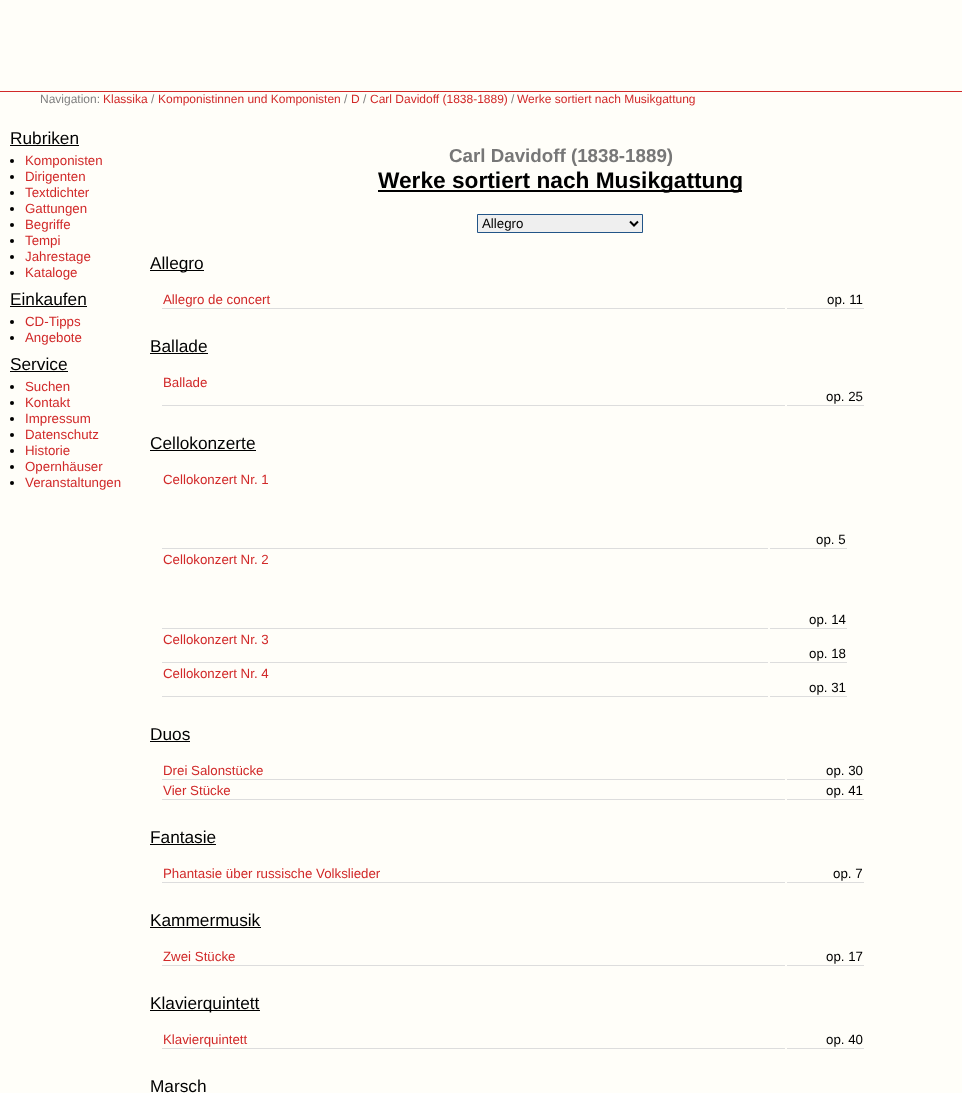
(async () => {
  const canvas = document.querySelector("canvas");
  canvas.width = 962;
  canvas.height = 1093;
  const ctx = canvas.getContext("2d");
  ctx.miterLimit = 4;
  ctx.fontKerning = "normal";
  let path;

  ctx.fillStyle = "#fffef9";
  ctx.fillRect(0, 0, 962, 1093);
  ctx.fillStyle = "#d12929";
  ctx.fillRect(0, 91, 962, 1);
  ctx.fillStyle = "#000000";
  ctx.fillRect(10, 145, 69, 1);
  ctx.beginPath();
  ctx.arc(12, 161, 2, 0, Math.PI * 2);
  ctx.fill();
  ctx.beginPath();
  ctx.arc(12, 177, 2, 0, Math.PI * 2);
  ctx.fill();
  ctx.beginPath();
  ctx.arc(12, 193, 2, 0, Math.PI * 2);
  ctx.fill();
  ctx.beginPath();
  ctx.arc(12, 209, 2, 0, Math.PI * 2);
  ctx.fill();
  ctx.beginPath();
  ctx.arc(12, 225, 2, 0, Math.PI * 2);
  ctx.fill();
  ctx.beginPath();
  ctx.arc(12, 241, 2, 0, Math.PI * 2);
  ctx.fill();
  ctx.beginPath();
  ctx.arc(12, 257, 2, 0, Math.PI * 2);
  ctx.fill();
  ctx.beginPath();
  ctx.arc(12, 273, 2, 0, Math.PI * 2);
  ctx.fill();
  ctx.fillRect(10, 306, 77, 1);
  ctx.beginPath();
  ctx.arc(12, 322, 2, 0, Math.PI * 2);
  ctx.fill();
  ctx.beginPath();
  ctx.arc(12, 338, 2, 0, Math.PI * 2);
  ctx.fill();
  ctx.fillRect(10, 371, 58, 1);
  ctx.beginPath();
  ctx.arc(12, 387, 2, 0, Math.PI * 2);
  ctx.fill();
  ctx.beginPath();
  ctx.arc(12, 403, 2, 0, Math.PI * 2);
  ctx.fill();
  ctx.beginPath();
  ctx.arc(12, 419, 2, 0, Math.PI * 2);
  ctx.fill();
  ctx.beginPath();
  ctx.arc(12, 435, 2, 0, Math.PI * 2);
  ctx.fill();
  ctx.beginPath();
  ctx.arc(12, 451, 2, 0, Math.PI * 2);
  ctx.fill();
  ctx.beginPath();
  ctx.arc(12, 467, 2, 0, Math.PI * 2);
  ctx.fill();
  ctx.beginPath();
  ctx.arc(12, 483, 2, 0, Math.PI * 2);
  ctx.fill();
  ctx.fillRect(378, 190, 364, 2);
  ctx.fillStyle = "#efefef";
  ctx.beginPath();
  ctx.rect(477.5, 214.5, 165, 18);
  ctx.fill();
  ctx.strokeStyle = "#225588";
  ctx.stroke();
  path = new Path2D("M630 221.5L634 225.5L638 221.5");
  ctx.strokeStyle = "#000000";
  ctx.lineWidth = 2;
  ctx.stroke(path);
  for (const [x, y, w, h, color] of [
    [150, 270, 54, 1, "#000000"],
    [162, 308, 623, 1, "#dddddd"],
    [787, 308, 77, 1, "#dddddd"],
    [150, 353, 58, 1, "#000000"],
    [162, 405, 623, 1, "#dddddd"],
    [787, 405, 77, 1, "#dddddd"],
    [150, 450, 106, 1, "#000000"],
    [162, 548, 606, 1, "#dddddd"],
    [770, 548, 77, 1, "#dddddd"],
    [162, 628, 606, 1, "#dddddd"],
    [770, 628, 77, 1, "#dddddd"],
    [162, 662, 606, 1, "#dddddd"],
    [770, 662, 77, 1, "#dddddd"],
    [162, 696, 606, 1, "#dddddd"],
    [770, 696, 77, 1, "#dddddd"],
    [150, 741, 40, 1, "#000000"],
    [162, 779, 623, 1, "#dddddd"],
    [787, 779, 77, 1, "#dddddd"],
    [162, 799, 623, 1, "#dddddd"],
    [787, 799, 77, 1, "#dddddd"],
    [150, 844, 66, 1, "#000000"],
    [162, 882, 623, 1, "#dddddd"],
    [787, 882, 77, 1, "#dddddd"],
    [150, 927, 111, 1, "#000000"],
    [162, 965, 623, 1, "#dddddd"],
    [787, 965, 77, 1, "#dddddd"],
    [150, 1010, 110, 1, "#000000"],
    [162, 1048, 623, 1, "#dddddd"],
    [787, 1048, 77, 1, "#dddddd"],
  ]) {
    ctx.fillStyle = color;
    ctx.fillRect(x, y, w, h);
  }
  ctx.font = "12px Liberation Sans";
  ctx.fillStyle = "#808080";
  ctx.fillText("Navigation:", 40, 103);
  ctx.fillStyle = "#d12929";
  ctx.fillText("Klassika", 103, 103);
  ctx.fillStyle = "#808080";
  ctx.fillText("/", 151, 103);
  ctx.fillStyle = "#d12929";
  ctx.fillText("Komponistinnen und Komponisten", 158, 103);
  ctx.fillStyle = "#808080";
  ctx.fillText("/", 344, 103);
  ctx.fillStyle = "#d12929";
  ctx.fillText("D", 351, 103);
  ctx.fillStyle = "#808080";
  ctx.fillText("/", 363, 103);
  ctx.fillStyle = "#d12929";
  ctx.fillText("Carl Davidoff (1838-1889)", 370, 103);
  ctx.fillStyle = "#808080";
  ctx.fillText("/", 511, 103);
  ctx.fillStyle = "#d12929";
  ctx.fillText("Werke sortiert nach Musikgattung", 517, 103);
  ctx.font = "17.25px Liberation Sans";
  ctx.fillStyle = "#000000";
  ctx.fillText("Rubriken", 10, 144);
  ctx.font = "13.3px Liberation Sans";
  ctx.fillStyle = "#d12929";
  for (const [text, x, y] of [
    ["Komponisten", 25, 165],
    ["Dirigenten", 25, 181],
    ["Textdichter", 25, 197],
    ["Gattungen", 25, 213],
    ["Begriffe", 25, 229],
    ["Tempi", 25, 245],
    ["Jahrestage", 25, 261],
    ["Kataloge", 25, 277],
  ]) {
    ctx.fillText(text, x, y);
  }
  ctx.font = "17.25px Liberation Sans";
  ctx.fillStyle = "#000000";
  ctx.fillText("Einkaufen", 10, 305);
  ctx.font = "13.3px Liberation Sans";
  ctx.fillStyle = "#d12929";
  ctx.fillText("CD-Tipps", 25, 326);
  ctx.fillText("Angebote", 25, 342);
  ctx.font = "17.25px Liberation Sans";
  ctx.fillStyle = "#000000";
  ctx.fillText("Service", 10, 370);
  ctx.font = "13.3px Liberation Sans";
  ctx.fillStyle = "#d12929";
  for (const [text, x, y] of [
    ["Suchen", 25, 391],
    ["Kontakt", 25, 407],
    ["Impressum", 25, 423],
    ["Datenschutz", 25, 439],
    ["Historie", 25, 455],
    ["Opernhäuser", 25, 471],
    ["Veranstaltungen", 25, 487],
  ]) {
    ctx.fillText(text, x, y);
  }
  ctx.font = "bold 18.75px Liberation Sans";
  ctx.fillStyle = "#777777";
  ctx.fillText("Carl Davidoff (1838-1889)", 449, 162);
  ctx.font = "bold 22.7px Liberation Sans";
  ctx.fillStyle = "#000000";
  ctx.fillText("Werke sortiert nach Musikgattung", 378, 188);
  ctx.font = "13.3px Liberation Sans";
  ctx.fillText("Allegro", 482, 228);
  ctx.font = "17.25px Liberation Sans";
  ctx.fillText("Allegro", 150, 269);
  ctx.font = "13.3px Liberation Sans";
  ctx.fillStyle = "#d12929";
  ctx.fillText("Allegro de concert", 163, 304);
  ctx.fillStyle = "#000000";
  ctx.fillText("op. 11", 827, 304);
  ctx.font = "17.25px Liberation Sans";
  ctx.fillText("Ballade", 150, 352);
  ctx.font = "13.3px Liberation Sans";
  ctx.fillStyle = "#d12929";
  ctx.fillText("Ballade", 163, 387);
  ctx.fillStyle = "#000000";
  ctx.fillText("op. 25", 826, 401);
  ctx.font = "17.25px Liberation Sans";
  ctx.fillText("Cellokonzerte", 150, 449);
  ctx.font = "13.3px Liberation Sans";
  ctx.fillStyle = "#d12929";
  ctx.fillText("Cellokonzert Nr. 1", 163, 484);
  ctx.fillStyle = "#000000";
  ctx.fillText("op. 5", 816, 544);
  ctx.fillStyle = "#d12929";
  ctx.fillText("Cellokonzert Nr. 2", 163, 564);
  ctx.fillStyle = "#000000";
  ctx.fillText("op. 14", 809, 624);
  ctx.fillStyle = "#d12929";
  ctx.fillText("Cellokonzert Nr. 3", 163, 644);
  ctx.fillStyle = "#000000";
  ctx.fillText("op. 18", 809, 658);
  ctx.fillStyle = "#d12929";
  ctx.fillText("Cellokonzert Nr. 4", 163, 678);
  ctx.fillStyle = "#000000";
  ctx.fillText("op. 31", 809, 692);
  ctx.font = "17.25px Liberation Sans";
  ctx.fillText("Duos", 150, 740);
  ctx.font = "13.3px Liberation Sans";
  ctx.fillStyle = "#d12929";
  ctx.fillText("Drei Salonstücke", 163, 775);
  ctx.fillStyle = "#000000";
  ctx.fillText("op. 30", 826, 775);
  ctx.fillStyle = "#d12929";
  ctx.fillText("Vier Stücke", 163, 795);
  ctx.fillStyle = "#000000";
  ctx.fillText("op. 41", 826, 795);
  ctx.font = "17.25px Liberation Sans";
  ctx.fillText("Fantasie", 150, 843);
  ctx.font = "13.3px Liberation Sans";
  ctx.fillStyle = "#d12929";
  ctx.fillText("Phantasie über russische Volkslieder", 163, 878);
  ctx.fillStyle = "#000000";
  ctx.fillText("op. 7", 833, 878);
  ctx.font = "17.25px Liberation Sans";
  ctx.fillText("Kammermusik", 150, 926);
  ctx.font = "13.3px Liberation Sans";
  ctx.fillStyle = "#d12929";
  ctx.fillText("Zwei Stücke", 163, 961);
  ctx.fillStyle = "#000000";
  ctx.fillText("op. 17", 826, 961);
  ctx.font = "17.25px Liberation Sans";
  ctx.fillText("Klavierquintett", 150, 1009);
  ctx.font = "13.3px Liberation Sans";
  ctx.fillStyle = "#d12929";
  ctx.fillText("Klavierquintett", 163, 1044);
  ctx.fillStyle = "#000000";
  ctx.fillText("op. 40", 826, 1044);
  ctx.font = "17.25px Liberation Sans";
  ctx.fillText("Marsch", 150, 1092);
})();
